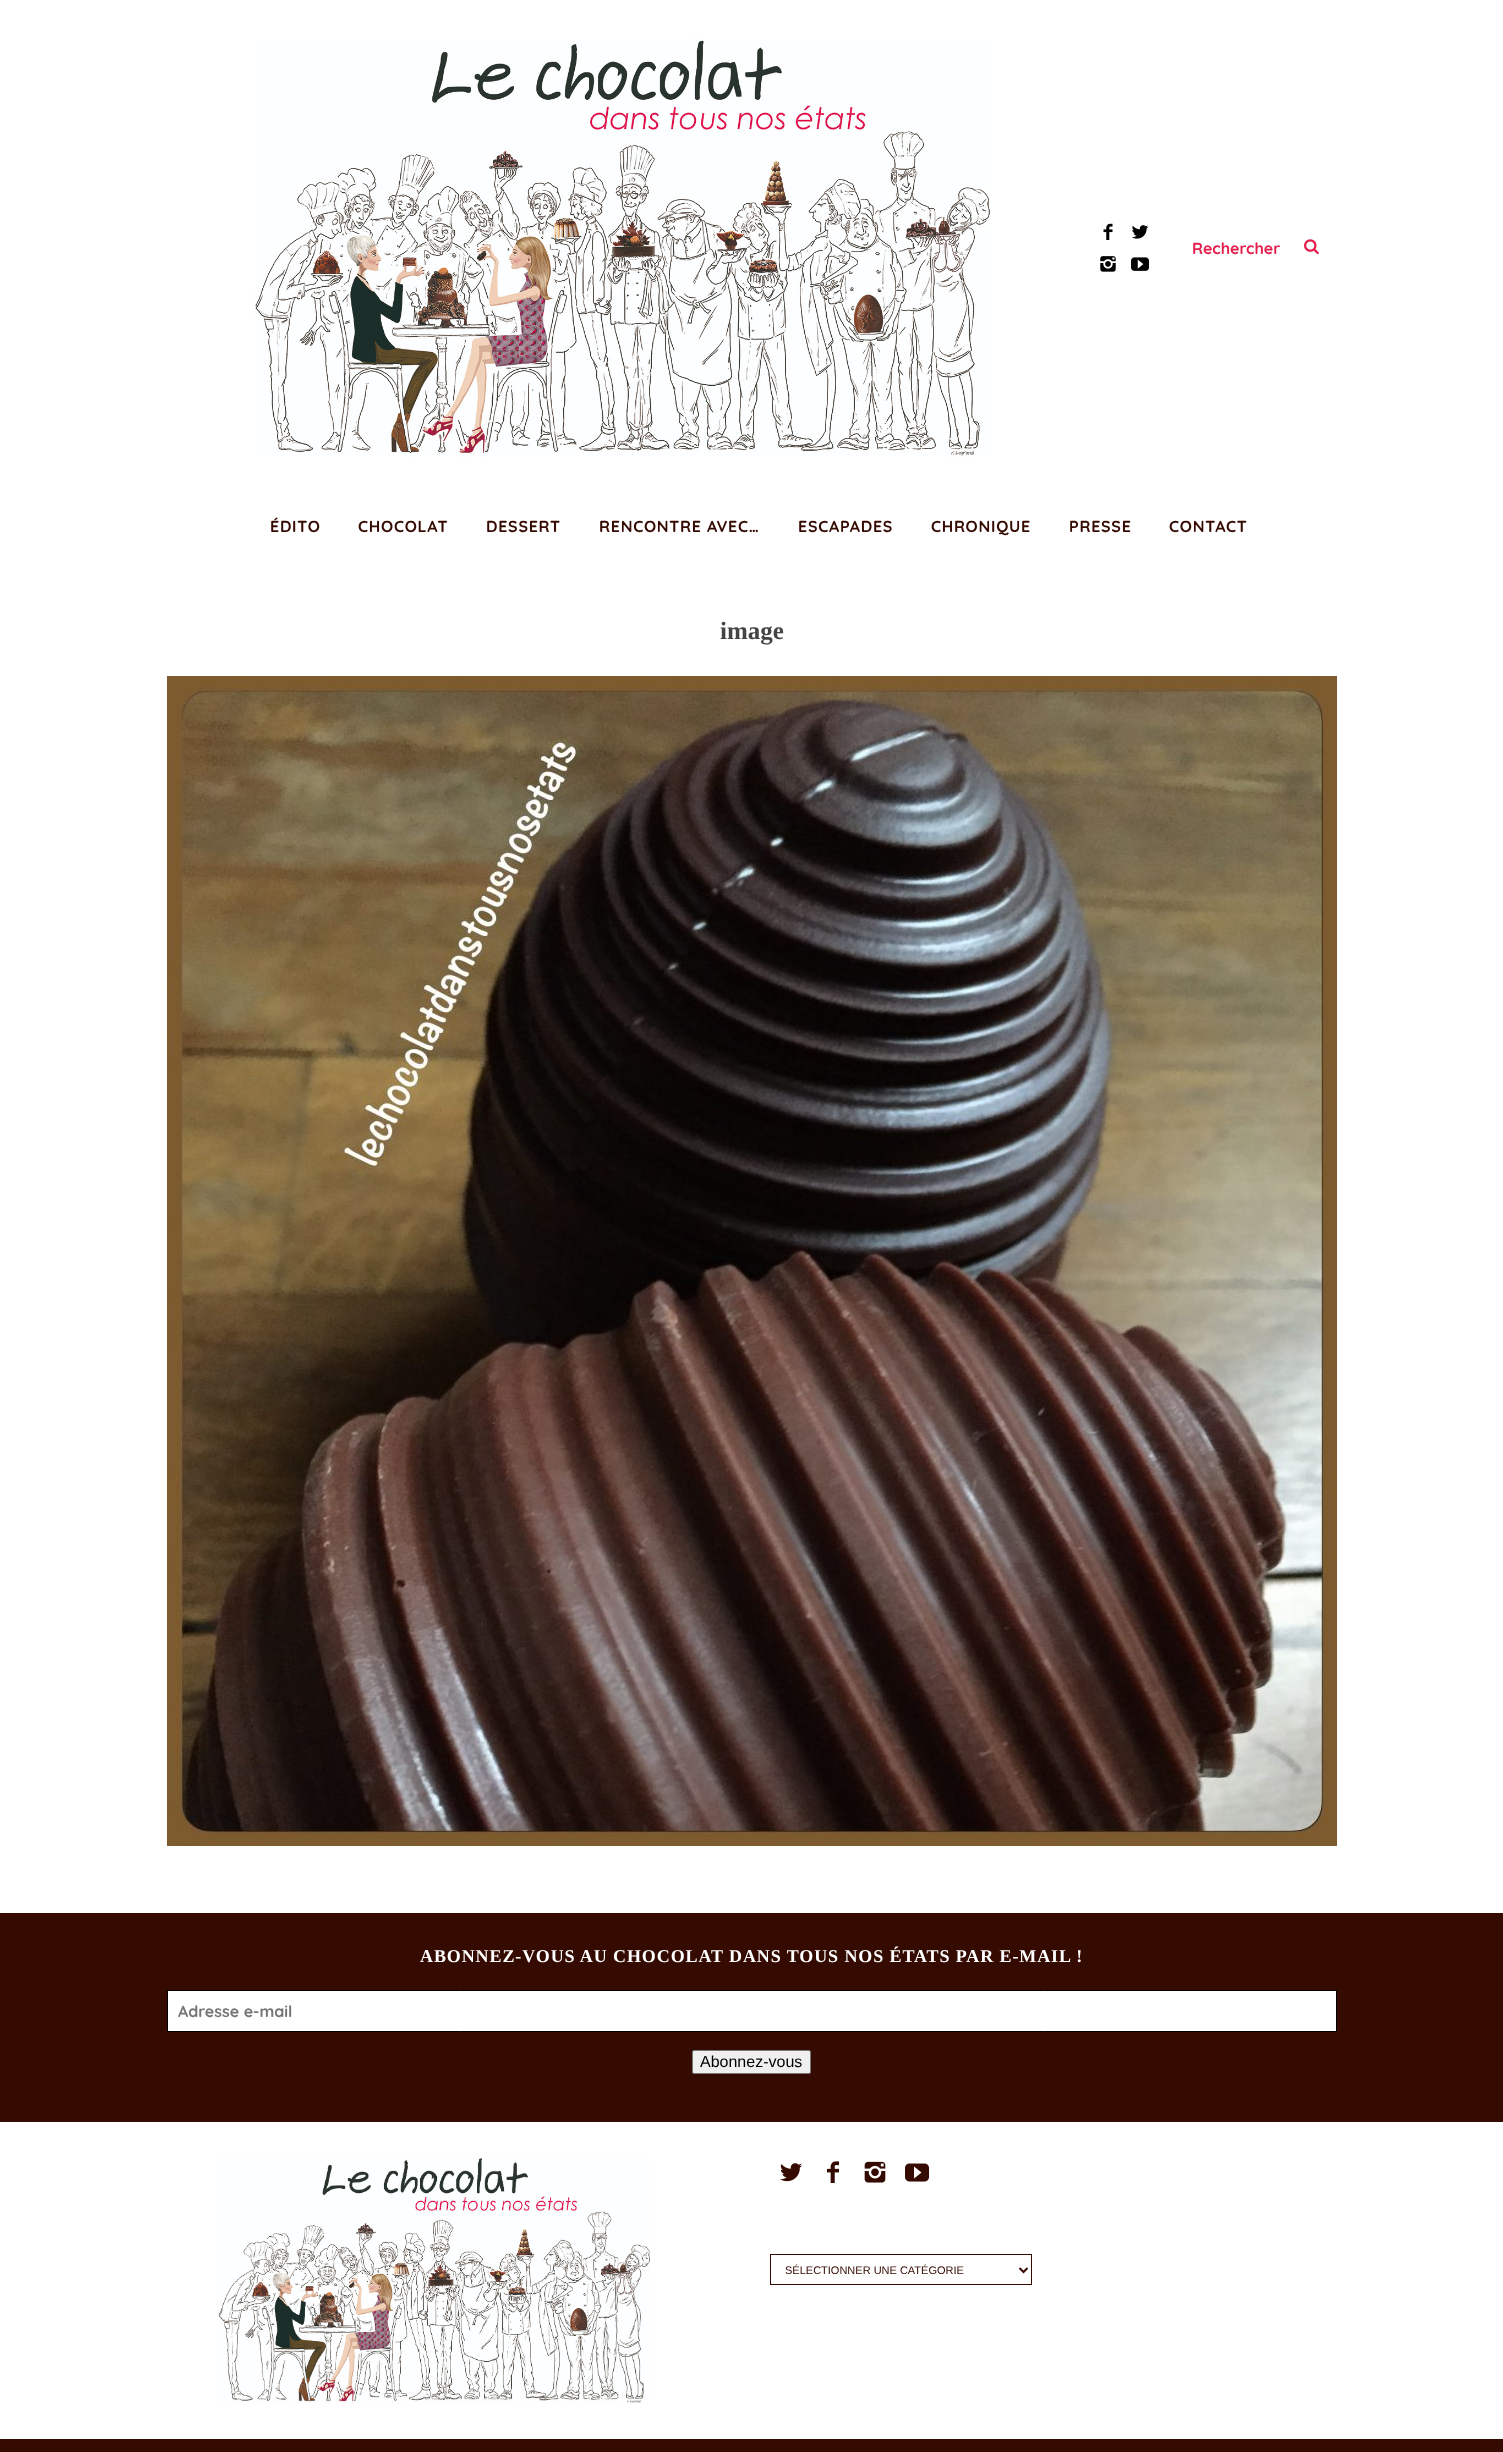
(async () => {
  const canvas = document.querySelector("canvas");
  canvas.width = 1503;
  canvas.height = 2452;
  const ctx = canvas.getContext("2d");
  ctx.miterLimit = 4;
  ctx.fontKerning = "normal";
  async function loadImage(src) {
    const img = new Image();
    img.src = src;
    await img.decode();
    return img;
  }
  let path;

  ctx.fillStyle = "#ffffff";
  ctx.fillRect(0, 0, 1503, 2452);
  ctx.drawImage(await loadImage("img/1.png"), 255, 39, 735, 418);
  ctx.drawImage(await loadImage("img/2.png"), 1103, 223, 10, 17);
  ctx.drawImage(await loadImage("img/3.png"), 1132, 225, 17, 14);
  ctx.drawImage(await loadImage("img/4.png"), 1100, 256, 16, 16);
  ctx.drawImage(await loadImage("img/5.png"), 1131, 257, 18, 14);
  ctx.drawImage(await loadImage("img/6.png"), 1304, 239, 15, 16);
  ctx.drawImage(await loadImage("img/7.png"), 167, 676, 1170, 1170);
  ctx.fillStyle = "#340a01";
  ctx.fillRect(0, 1913, 1503, 209);
  ctx.fillStyle = "#ffffff";
  ctx.beginPath();
  ctx.rect(167.5, 1990.5, 1169, 41);
  ctx.fill();
  ctx.strokeStyle = "#000000";
  ctx.stroke();
  ctx.fillStyle = "#efefef";
  ctx.beginPath();
  ctx.roundRect(692.5, 2050.5, 118, 23, 1.5);
  ctx.fill();
  ctx.strokeStyle = "#767676";
  ctx.stroke();
  ctx.drawImage(await loadImage("img/8.png"), 218, 2158, 432, 245);
  ctx.drawImage(await loadImage("img/9.png"), 780, 2163, 22, 19);
  ctx.drawImage(await loadImage("img/10.png"), 827, 2161, 12, 22);
  ctx.drawImage(await loadImage("img/11.png"), 864, 2161, 22, 22);
  ctx.drawImage(await loadImage("img/12.png"), 905, 2163, 24, 19);
  ctx.strokeStyle = "#340a01";
  ctx.strokeRect(770.5, 2254.5, 261, 30);
  path = new Path2D("M1019.5 2268L1023.5 2272L1027.5 2268");
  ctx.lineWidth = 2;
  ctx.stroke(path);
  ctx.fillStyle = "#340a01";
  ctx.fillRect(0, 2439, 1503, 13);
  ctx.font = "300 16px Quicksand";
  ctx.fillStyle = "#e21f4d";
  ctx.fillText("Rechercher", 1192, 254);
  ctx.letterSpacing = "0.75px";
  ctx.fillStyle = "#340a01";
  for (const [text, x, y] of [
    ["ÉDITO", 270, 532],
    ["CHOCOLAT", 358, 532],
    ["DESSERT", 486, 532],
    ["RENCONTRE AVEC…", 599, 532],
    ["ESCAPADES", 798, 532],
    ["CHRONIQUE", 931, 532],
    ["PRESSE", 1069, 532],
    ["CONTACT", 1169, 532],
  ]) {
    ctx.fillText(text, x, y);
  }
  ctx.letterSpacing = "0px";
  ctx.font = "bold 25px Liberation Serif";
  ctx.fillStyle = "#444444";
  ctx.fillText("image", 720, 639);
  ctx.letterSpacing = "0.9px";
  ctx.font = "bold 18px Liberation Serif";
  ctx.fillStyle = "#ffffff";
  ctx.fillText("ABONNEZ-VOUS AU CHOCOLAT DANS TOUS NOS ÉTATS PAR E-MAIL !", 420, 1962);
  ctx.letterSpacing = "0px";
  ctx.font = "300 16px Quicksand";
  ctx.fillStyle = "#757575";
  ctx.fillText("Adresse e-mail", 178, 2017);
  ctx.font = "16px Liberation Sans";
  ctx.fillStyle = "#000000";
  ctx.fillText("Abonnez-vous", 700, 2067);
  ctx.font = "11px Liberation Sans";
  ctx.fillStyle = "#340a01";
  ctx.fillText("SÉLECTIONNER UNE CATÉGORIE", 785, 2274);
})();
